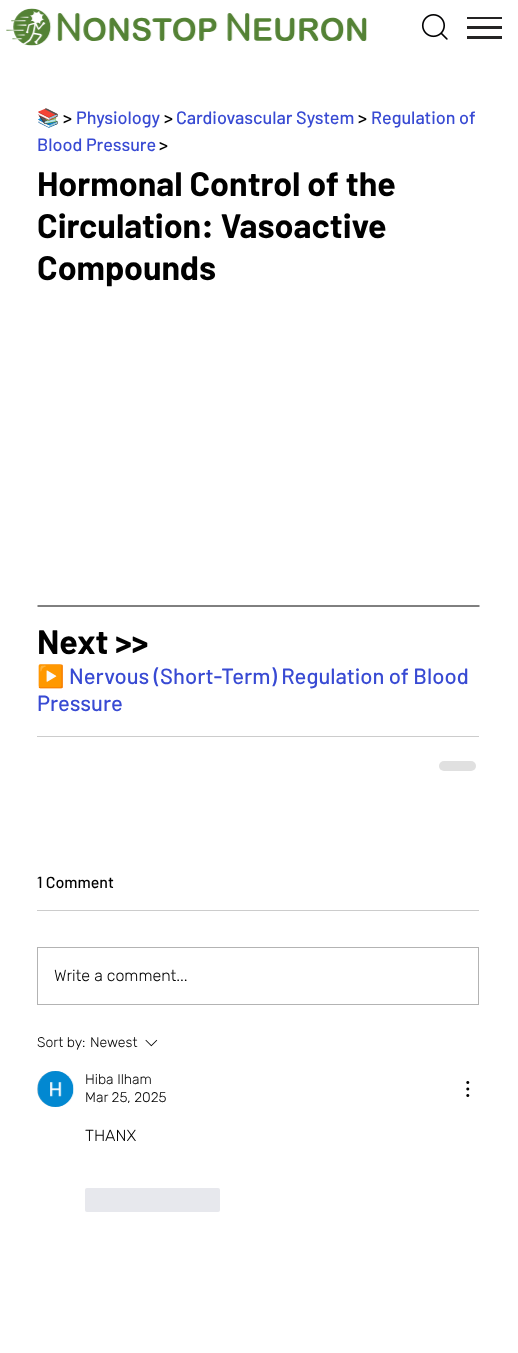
(async () => {
  const canvas = document.querySelector("canvas");
  canvas.width = 518;
  canvas.height = 1353;
  const ctx = canvas.getContext("2d");
  ctx.miterLimit = 4;
  ctx.fontKerning = "normal";
  async function loadImage(src) {
    const img = new Image();
    img.src = src;
    await img.decode();
    return img;
  }
  let path;

  ctx.fillStyle = "#ffffff";
  ctx.fillRect(0, 0, 518, 1353);
  ctx.drawImage(await loadImage("img/1.png"), 6, 8, 361, 38);
  ctx.drawImage(await loadImage("img/2.png"), 421, 14, 27, 26);
  for (const [x, y, w, h, color] of [
    [467, 36, 35, 3, "#242323"],
    [467, 17, 35, 2, "#242323"],
    [467, 26, 35, 3, "#242323"],
  ]) {
    ctx.fillStyle = color;
    ctx.fillRect(x, y, w, h);
  }
  path = new Path2D("M37.5 606H479.5");
  ctx.strokeStyle = "#000000";
  ctx.stroke(path);
  ctx.fillStyle = "#cccccc";
  ctx.fillRect(37, 736, 442, 1);
  ctx.fillStyle = "#e0e0e0";
  ctx.beginPath();
  ctx.roundRect(439, 761, 37, 10, 5);
  ctx.fill();
  ctx.fillStyle = "#cccccc";
  ctx.fillRect(37, 910, 442, 1);
  ctx.strokeStyle = "#b3b3b3";
  ctx.strokeRect(37.5, 947.5, 441, 57);
  ctx.drawImage(await loadImage("img/3.png"), 145, 1039, 13, 8);
  ctx.fillStyle = "#d8d8d8";
  ctx.beginPath();
  ctx.arc(55, 1089, 18, 0, Math.PI * 2);
  ctx.fill();
  ctx.drawImage(await loadImage("img/4.png"), 37, 1071, 37, 36);
  ctx.drawImage(await loadImage("img/5.png"), 466, 1081, 4, 16);
  ctx.fillStyle = "#e7e8ed";
  ctx.beginPath();
  ctx.roundRect(85, 1188, 135, 24, 2);
  ctx.fill();
  ctx.font = "18px Noto Color Emoji";
  ctx.fillStyle = "#384ad3";
  ctx.fillText("📚", 37, 124);
  ctx.font = "500 18px Barlow";
  ctx.fillStyle = "#000000";
  ctx.fillText(">", 63, 124);
  ctx.fillStyle = "#384ad3";
  ctx.fillText("Physiology", 76, 124);
  ctx.fillStyle = "#000000";
  ctx.fillText(">", 164, 124);
  ctx.fillStyle = "#384ad3";
  ctx.fillText("Cardiovascular System", 176, 124);
  ctx.fillStyle = "#000000";
  ctx.fillText(">", 358, 124);
  ctx.fillStyle = "#384ad3";
  ctx.fillText("Regulation of", 371, 124);
  ctx.fillText("Blood Pressure", 37, 151);
  ctx.fillStyle = "#000000";
  ctx.fillText(">", 159, 151);
  ctx.font = "bold 34px Barlow";
  for (const [text, x, y] of [
    ["Hormonal Control of the", 37, 196],
    ["Circulation: Vasoactive", 37, 238],
    ["Compounds", 37, 280],
    ["Next >>", 37, 654],
  ]) {
    ctx.fillText(text, x, y);
  }
  ctx.font = "22px Noto Color Emoji";
  ctx.fillText("▶️", 37, 684);
  ctx.font = "500 22px Barlow";
  ctx.fillStyle = "#384ad3";
  ctx.fillText("Nervous (Short-Term) Regulation of Blood", 69, 684);
  ctx.fillText("Pressure", 37, 711);
  ctx.font = "500 16px Barlow";
  ctx.fillStyle = "#000000";
  ctx.fillText("1 Comment", 37, 888);
  ctx.font = "300 16px Rubik";
  ctx.fillText("Write a comment...", 54, 981);
  ctx.font = "300 14px Rubik";
  for (const [text, x, y] of [
    ["Sort by:", 37, 1047],
    ["Newest", 90, 1047],
    ["Hiba Ilham", 85, 1084],
    ["Mar 25, 2025", 85, 1102],
  ]) {
    ctx.fillText(text, x, y);
  }
  ctx.font = "300 16px Rubik";
  ctx.fillText("THANX", 85, 1141);
})();
